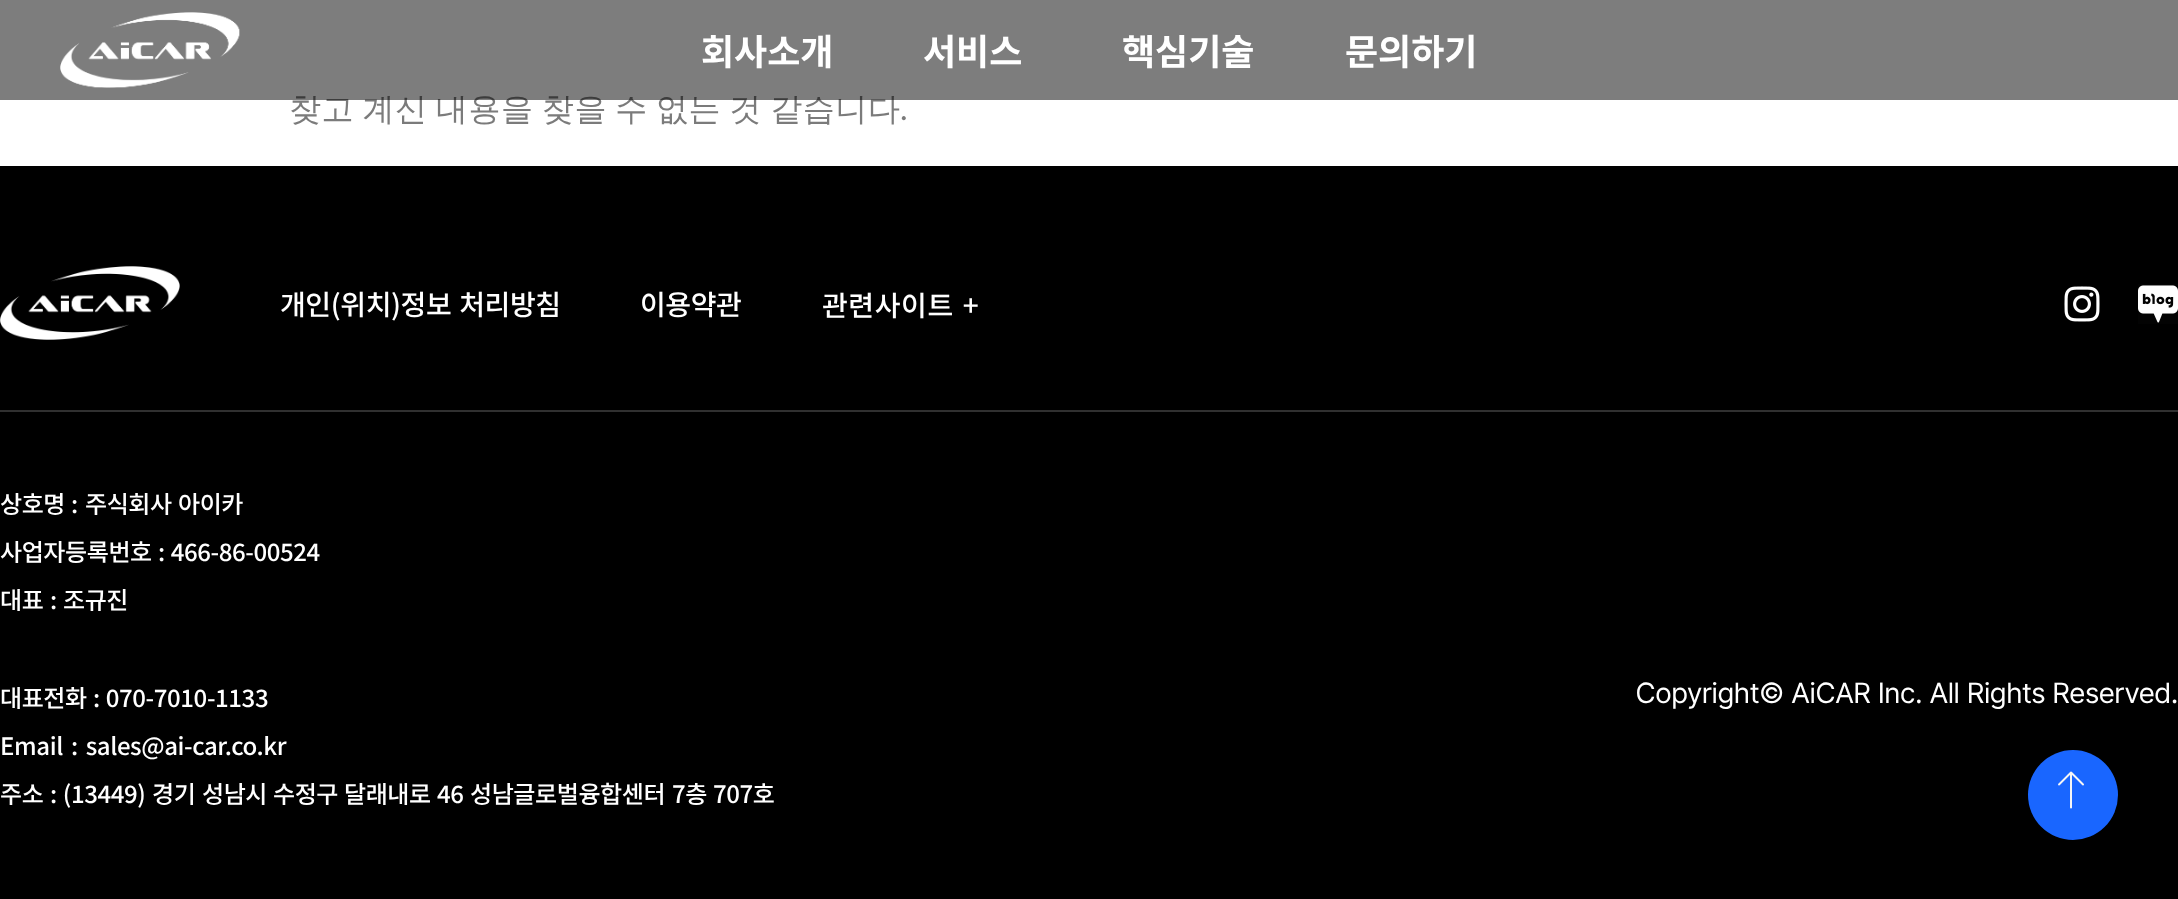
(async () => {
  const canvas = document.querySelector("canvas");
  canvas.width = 2178;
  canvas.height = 899;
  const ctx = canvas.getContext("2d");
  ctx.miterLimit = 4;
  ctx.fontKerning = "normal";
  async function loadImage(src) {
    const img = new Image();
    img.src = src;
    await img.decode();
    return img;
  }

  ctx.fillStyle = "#ffffff";
  ctx.fillRect(0, 0, 2178, 899);
  ctx.fillStyle = "#000000";
  ctx.fillRect(0, 166, 2178, 733);
  ctx.fillStyle = "#303030";
  ctx.fillRect(0, 410, 2178, 2);
  ctx.drawImage(await loadImage("img/2.png"), 0, 266, 180, 74);
  ctx.drawImage(await loadImage("img/3.png"), 2064, 286, 36, 36);
  ctx.fillStyle = "#030303";
  ctx.fillRect(2138, 284, 40, 40);
  ctx.drawImage(await loadImage("img/4.png"), 2138, 285, 40, 38);
  ctx.fillStyle = "#1966ff";
  ctx.beginPath();
  ctx.arc(2073, 795, 45, 0, Math.PI * 2);
  ctx.fill();
  ctx.drawImage(await loadImage("img/5.png"), 2058, 771, 26, 38);
  ctx.letterSpacing = "0.6px";
  ctx.wordSpacing = "-2px";
  ctx.font = "500 32px WenQuanYi Zen Hei";
  ctx.fillStyle = "#7b7b7b";
  ctx.fillText("찾고 계신 내용을 찾을 수 없는 것 같습니다", 289, 120);
  ctx.fillStyle = "rgba(0, 0, 0, 0.51)";
  ctx.fillRect(0, 0, 2178, 100);
  ctx.letterSpacing = "0px";
  ctx.wordSpacing = "0px";
  ctx.font = "bold 36px Noto Sans KR";
  ctx.fillStyle = "#ffffff";
  for (const [text, x, y] of [
    ["문의하기", 1345, 65],
    ["핵심기술", 1122, 65],
    ["서비스", 923, 65],
    ["회사소개", 701, 65],
  ]) {
    ctx.fillText(text, x, y);
  }
  ctx.drawImage(await loadImage("img/1.png"), 60, 12, 180, 76);
  ctx.letterSpacing = "0.6px";
  ctx.font = "32px Inter Tight";
  ctx.fillStyle = "#7b7b7b";
  ctx.fillText(".", 900, 120);
  ctx.letterSpacing = "-0.4px";
  ctx.wordSpacing = "2px";
  ctx.font = "500 28px Noto Sans KR";
  ctx.fillStyle = "#ffffff";
  ctx.fillText("개인(위치)정보 처리방침", 280, 315);
  ctx.wordSpacing = "0px";
  ctx.fillText("이용약관", 640, 315);
  ctx.letterSpacing = "0.6px";
  ctx.wordSpacing = "2px";
  ctx.fillText("관련사이트 +", 822, 316);
  ctx.letterSpacing = "-0.4px";
  ctx.wordSpacing = "0px";
  ctx.font = "500 24px Noto Sans KR";
  for (const [text, x, y] of [
    ["상호명", 0, 513],
    [":", 71, 513],
    ["주식회사", 85, 513],
    ["아이카", 178, 513],
    ["사업자등록번호", 0, 561],
  ]) {
    ctx.fillText(text, x, y);
  }
  ctx.wordSpacing = "1px";
  ctx.fillText(": 466-86-00524", 158, 561);
  ctx.wordSpacing = "0px";
  for (const [text, x, y] of [
    ["대표", 0, 609],
    [":", 50, 609],
    ["조규진", 63, 609],
    ["대표전화", 0, 707],
  ]) {
    ctx.fillText(text, x, y);
  }
  ctx.wordSpacing = "1px";
  ctx.fillText(": 070-7010-1133", 93, 707);
  ctx.wordSpacing = "3px";
  ctx.fillText("Email : sales@ai-car.co.kr", 0, 755);
  ctx.wordSpacing = "0px";
  ctx.fillText("주소", 0, 803);
  ctx.wordSpacing = "1px";
  ctx.fillText(": (13449)", 50, 803);
  ctx.wordSpacing = "0px";
  for (const [text, x, y] of [
    ["경기", 152, 803],
    ["성남시", 202, 803],
    ["수정구", 273, 803],
    ["달래내로", 344, 803],
    ["46", 437, 803],
    ["성남글로벌융합센터", 470, 803],
    ["7층", 672, 803],
    ["707호", 713, 803],
  ]) {
    ctx.fillText(text, x, y);
  }
  ctx.letterSpacing = "0.6px";
  ctx.font = "28px Inter Tight";
  ctx.fillText("Copyright© AiCAR Inc. All Rights Reserved.", 1636, 703);
})();
